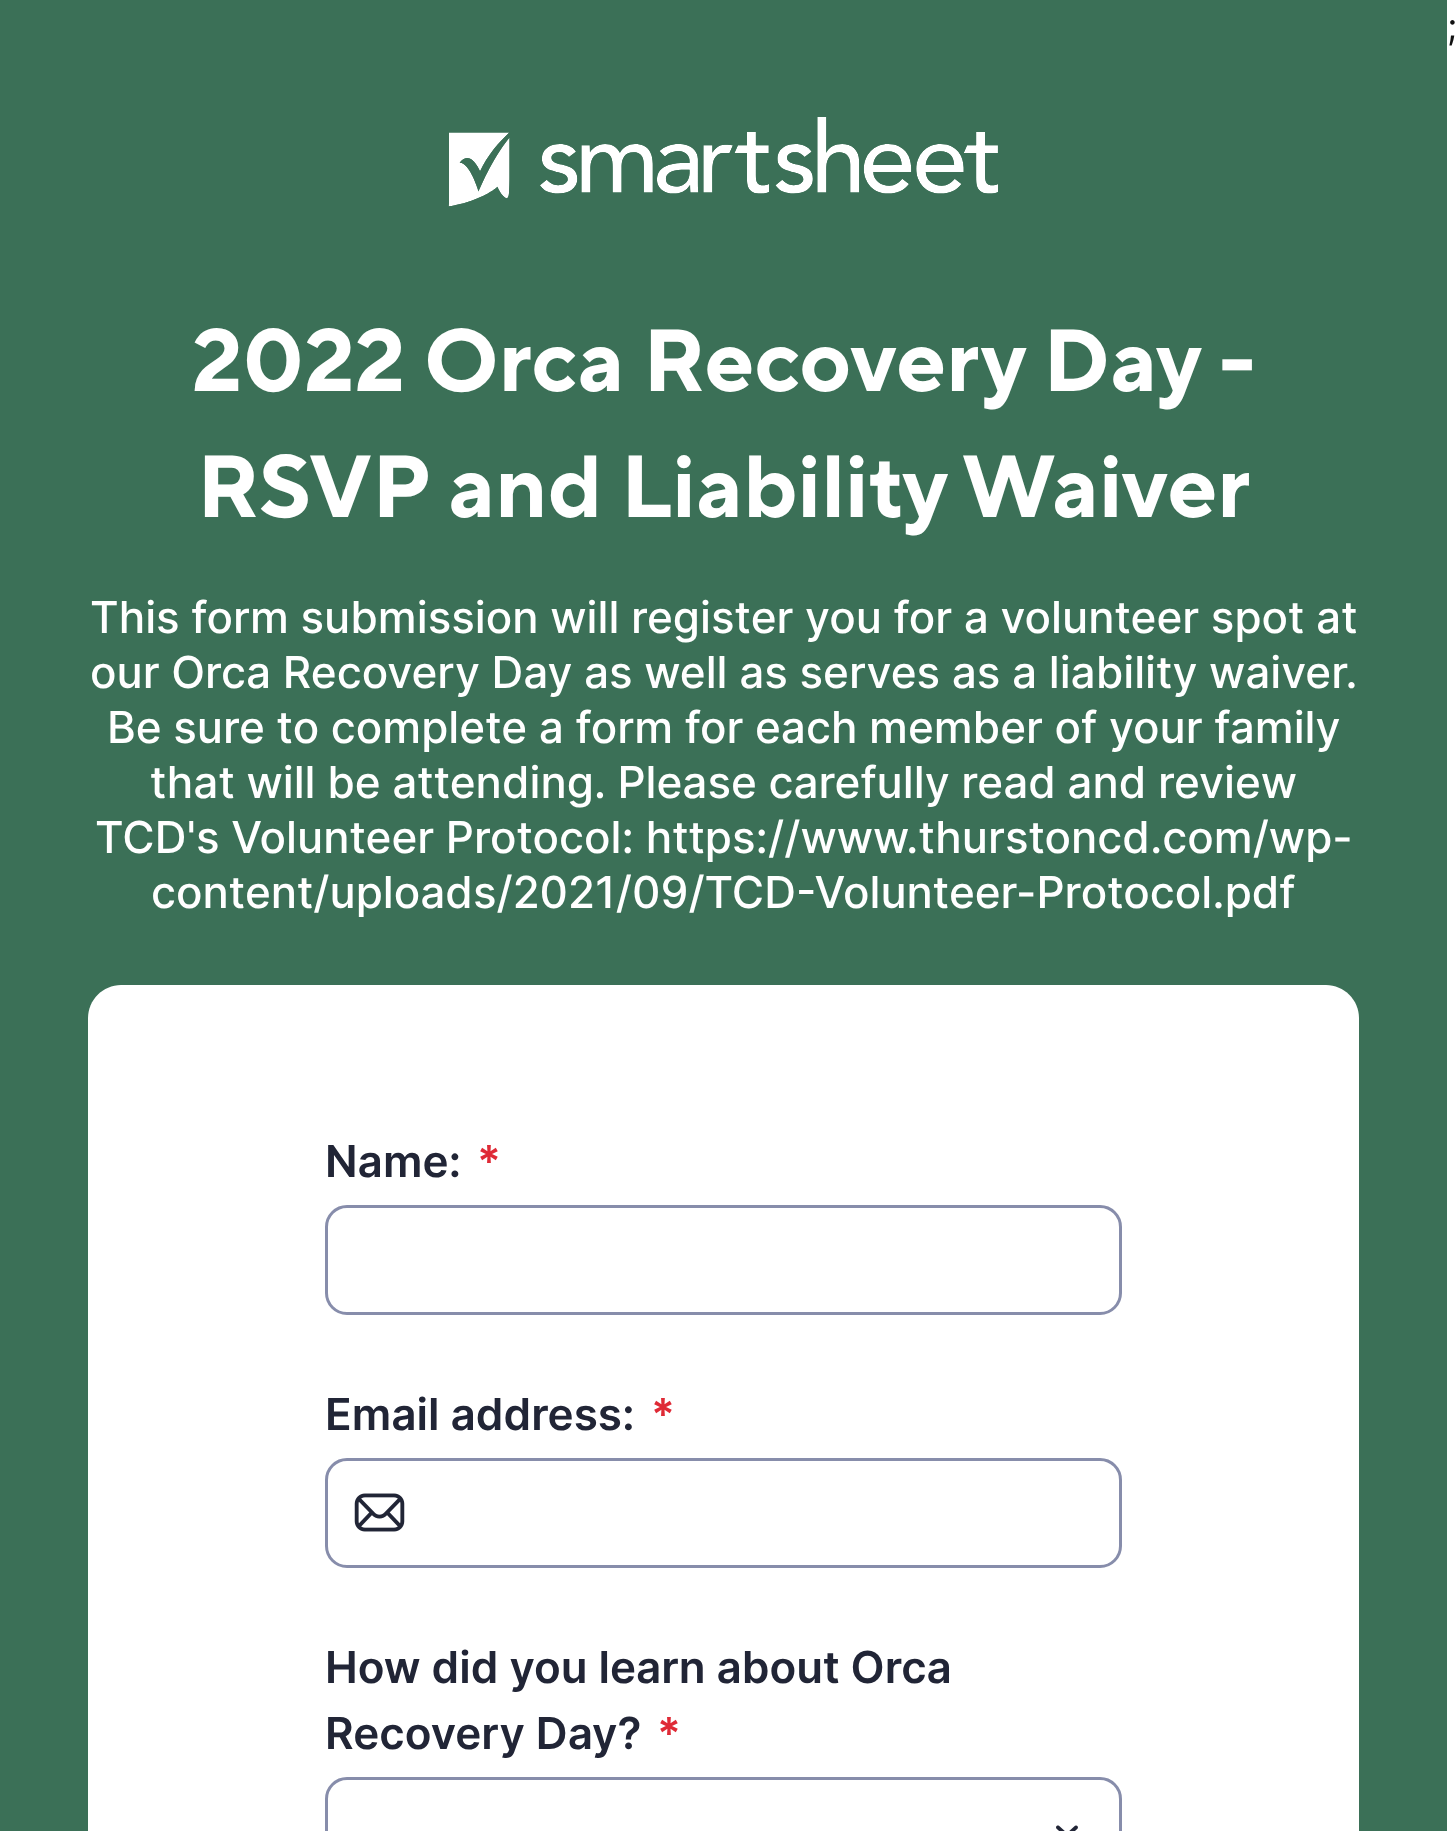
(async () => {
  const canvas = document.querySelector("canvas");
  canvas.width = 1455;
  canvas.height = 1831;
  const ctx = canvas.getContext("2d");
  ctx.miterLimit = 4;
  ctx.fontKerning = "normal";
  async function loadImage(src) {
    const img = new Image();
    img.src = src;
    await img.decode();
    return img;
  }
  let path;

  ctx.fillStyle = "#ffffff";
  ctx.fillRect(0, 0, 1455, 1831);
  ctx.fillStyle = "#3b7057";
  ctx.fillRect(0, 0, 1447, 1831);
  ctx.drawImage(await loadImage("img/1.png"), 448, 117, 550, 90);
  ctx.fillStyle = "#ffffff";
  path = new Path2D("M121 985H1326C1344 985 1359 1000 1359 1018V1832H88V1018C88 1000 103 985 121 985Z");
  ctx.fill(path);
  ctx.beginPath();
  ctx.roundRect(326.5, 1206.5, 794, 107, 20.5);
  ctx.strokeStyle = "#878dab";
  ctx.lineWidth = 3;
  ctx.stroke();
  ctx.beginPath();
  ctx.roundRect(326.5, 1459.5, 794, 107, 20.5);
  ctx.stroke();
  ctx.drawImage(await loadImage("img/2.png"), 354, 1493, 51, 39);
  ctx.drawImage(await loadImage("img/3.png"), 1056, 1825, 22, 6);
  ctx.beginPath();
  ctx.roundRect(326.5, 1778.5, 794, 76, 20.5);
  ctx.stroke();
  ctx.font = "36px Inter";
  ctx.fillStyle = "#111111";
  ctx.fillText(";", 1447, 39);
  ctx.font = "bold 88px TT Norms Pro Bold";
  ctx.fillStyle = "#ffffff";
  ctx.fillText("2022 Orca Recovery Day -", 192, 391);
  ctx.fillText("RSVP and Liability Waiver", 197, 517);
  ctx.font = "500 44px Inter";
  for (const [text, x, y] of [
    ["This form submission will register you for a volunteer spot at", 90, 633],
    ["our Orca Recovery Day as well as serves as a liability waiver.", 90, 688],
    ["Be sure to complete a form for each member of your family", 107, 743],
    ["that will be attending. Please carefully read and review", 150, 798],
    ["TCD's Volunteer Protocol: https://www.thurstoncd.com/wp-", 95, 853],
    ["content/uploads/2021/09/TCD-Volunteer-Protocol.pdf", 151, 908],
  ]) {
    ctx.fillText(text, x, y);
  }
  ctx.font = "600 44px Inter";
  ctx.fillStyle = "#212536";
  ctx.fillText("Name:", 325, 1177);
  ctx.fillStyle = "#df2a36";
  ctx.fillText("*", 477, 1177);
  ctx.fillStyle = "#212536";
  ctx.fillText("Email address:", 325, 1430);
  ctx.fillStyle = "#df2a36";
  ctx.fillText("*", 651, 1430);
  ctx.fillStyle = "#212536";
  ctx.fillText("How did you learn about Orca", 325, 1683);
  ctx.fillText("Recovery Day?", 325, 1749);
  ctx.fillStyle = "#df2a36";
  ctx.fillText("*", 657, 1749);
})();
